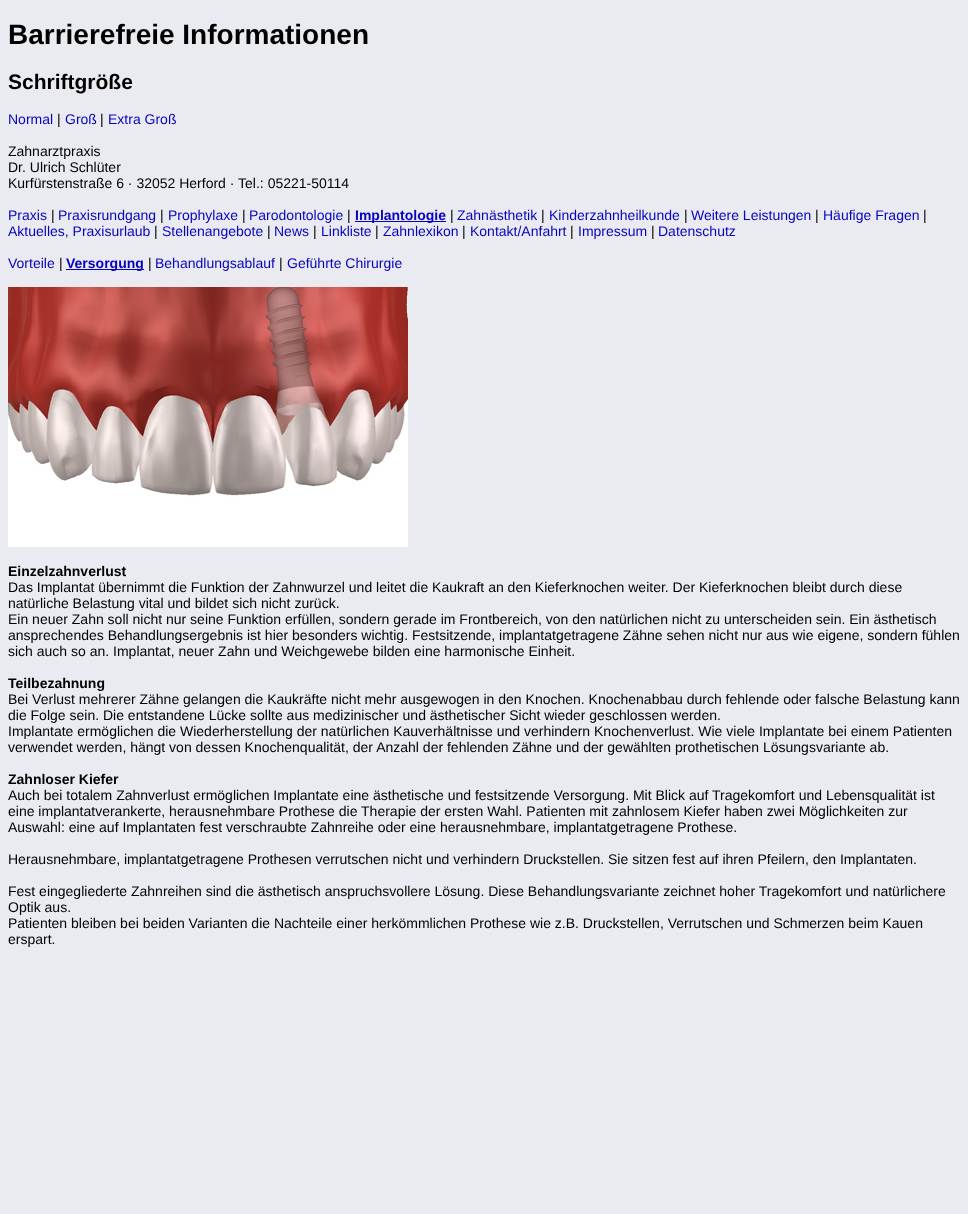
(async () => {
  const canvas = document.querySelector("canvas");
  canvas.width = 968;
  canvas.height = 1214;
  const ctx = canvas.getContext("2d");
  ctx.miterLimit = 4;
  ctx.fontKerning = "normal";
  async function loadImage(src) {
    const img = new Image();
    img.src = src;
    await img.decode();
    return img;
  }

  ctx.fillStyle = "#eaebf0";
  ctx.fillRect(0, 0, 968, 1214);
  ctx.fillStyle = "#0703bf";
  ctx.fillRect(355, 221, 91, 1);
  ctx.fillRect(66, 269, 78, 1);
  ctx.drawImage(await loadImage("img/1.png"), 8, 287, 400, 260);
  ctx.font = "bold 28px Liberation Sans";
  ctx.fillStyle = "#000000";
  ctx.fillText("Barrierefreie Informationen", 8, 44);
  ctx.font = "bold 21px Liberation Sans";
  ctx.fillText("Schriftgröße", 8, 89);
  ctx.font = "14px Liberation Sans";
  ctx.fillStyle = "#0703bf";
  ctx.fillText("Normal", 8, 124);
  ctx.fillStyle = "#000000";
  ctx.fillText("|", 57, 124);
  ctx.fillStyle = "#0703bf";
  ctx.fillText("Groß", 65, 124);
  ctx.fillStyle = "#000000";
  ctx.fillText("|", 100, 124);
  ctx.fillStyle = "#0703bf";
  ctx.fillText("Extra Groß", 108, 124);
  ctx.fillStyle = "#000000";
  for (const [text, x, y] of [
    ["Zahnarztpraxis", 8, 156],
    ["Dr. Ulrich Schlüter", 8, 172],
    ["Kurfürstenstraße 6 · 32052 Herford · Tel.: 05221-50114", 8, 188],
  ]) {
    ctx.fillText(text, x, y);
  }
  ctx.fillStyle = "#0703bf";
  ctx.fillText("Praxis", 8, 220);
  ctx.fillStyle = "#000000";
  ctx.fillText("|", 51, 220);
  ctx.fillStyle = "#0703bf";
  ctx.fillText("Praxisrundgang", 58, 220);
  ctx.fillStyle = "#000000";
  ctx.fillText("|", 160, 220);
  ctx.fillStyle = "#0703bf";
  ctx.fillText("Prophylaxe", 168, 220);
  ctx.fillStyle = "#000000";
  ctx.fillText("|", 242, 220);
  ctx.fillStyle = "#0703bf";
  ctx.fillText("Parodontologie", 249, 220);
  ctx.fillStyle = "#000000";
  ctx.fillText("|", 347, 220);
  ctx.font = "bold 14px Liberation Sans";
  ctx.fillStyle = "#0703bf";
  ctx.fillText("Implantologie", 355, 220);
  ctx.font = "14px Liberation Sans";
  ctx.fillStyle = "#000000";
  ctx.fillText("|", 450, 220);
  ctx.fillStyle = "#0703bf";
  ctx.fillText("Zahnästhetik", 457, 220);
  ctx.fillStyle = "#000000";
  ctx.fillText("|", 541, 220);
  ctx.fillStyle = "#0703bf";
  ctx.fillText("Kinderzahnheilkunde", 549, 220);
  ctx.fillStyle = "#000000";
  ctx.fillText("|", 684, 220);
  ctx.fillStyle = "#0703bf";
  ctx.fillText("Weitere Leistungen", 691, 220);
  ctx.fillStyle = "#000000";
  ctx.fillText("|", 815, 220);
  ctx.fillStyle = "#0703bf";
  ctx.fillText("Häufige Fragen", 823, 220);
  ctx.fillStyle = "#000000";
  ctx.fillText("|", 923, 220);
  ctx.fillStyle = "#0703bf";
  ctx.fillText("Aktuelles, Praxisurlaub", 8, 236);
  ctx.fillStyle = "#000000";
  ctx.fillText("|", 154, 236);
  ctx.fillStyle = "#0703bf";
  ctx.fillText("Stellenangebote", 162, 236);
  ctx.fillStyle = "#000000";
  ctx.fillText("|", 267, 236);
  ctx.fillStyle = "#0703bf";
  ctx.fillText("News", 274, 236);
  ctx.fillStyle = "#000000";
  ctx.fillText("|", 313, 236);
  ctx.fillStyle = "#0703bf";
  ctx.fillText("Linkliste", 321, 236);
  ctx.fillStyle = "#000000";
  ctx.fillText("|", 375, 236);
  ctx.fillStyle = "#0703bf";
  ctx.fillText("Zahnlexikon", 383, 236);
  ctx.fillStyle = "#000000";
  ctx.fillText("|", 462, 236);
  ctx.fillStyle = "#0703bf";
  ctx.fillText("Kontakt/Anfahrt", 470, 236);
  ctx.fillStyle = "#000000";
  ctx.fillText("|", 570, 236);
  ctx.fillStyle = "#0703bf";
  ctx.fillText("Impressum", 578, 236);
  ctx.fillStyle = "#000000";
  ctx.fillText("|", 651, 236);
  ctx.fillStyle = "#0703bf";
  ctx.fillText("Datenschutz", 658, 236);
  ctx.fillText("Vorteile", 8, 268);
  ctx.fillStyle = "#000000";
  ctx.fillText("|", 59, 268);
  ctx.font = "bold 14px Liberation Sans";
  ctx.fillStyle = "#0703bf";
  ctx.fillText("Versorgung", 66, 268);
  ctx.font = "14px Liberation Sans";
  ctx.fillStyle = "#000000";
  ctx.fillText("|", 148, 268);
  ctx.fillStyle = "#0703bf";
  ctx.fillText("Behandlungsablauf", 155, 268);
  ctx.fillStyle = "#000000";
  ctx.fillText("|", 279, 268);
  ctx.fillStyle = "#0703bf";
  ctx.fillText("Geführte Chirurgie", 287, 268);
  ctx.font = "bold 14px Liberation Sans";
  ctx.fillStyle = "#000000";
  ctx.fillText("Einzelzahnverlust", 8, 576);
  ctx.font = "14px Liberation Sans";
  for (const [text, x, y] of [
    ["Das Implantat übernimmt die Funktion der Zahnwurzel und leitet die Kaukraft an den Kieferknochen weiter. Der Kieferknochen bleibt durch diese", 8, 592],
    ["natürliche Belastung vital und bildet sich nicht zurück.", 8, 608],
    ["Ein neuer Zahn soll nicht nur seine Funktion erfüllen, sondern gerade im Frontbereich, von den natürlichen nicht zu unterscheiden sein. Ein ästhetisch", 8, 624],
    ["ansprechendes Behandlungsergebnis ist hier besonders wichtig. Festsitzende, implantatgetragene Zähne sehen nicht nur aus wie eigene, sondern fühlen", 8, 640],
    ["sich auch so an. Implantat, neuer Zahn und Weichgewebe bilden eine harmonische Einheit.", 8, 656],
  ]) {
    ctx.fillText(text, x, y);
  }
  ctx.font = "bold 14px Liberation Sans";
  ctx.fillText("Teilbezahnung", 8, 688);
  ctx.font = "14px Liberation Sans";
  for (const [text, x, y] of [
    ["Bei Verlust mehrerer Zähne gelangen die Kaukräfte nicht mehr ausgewogen in den Knochen. Knochenabbau durch fehlende oder falsche Belastung kann", 8, 704],
    ["die Folge sein. Die entstandene Lücke sollte aus medizinischer und ästhetischer Sicht wieder geschlossen werden.", 8, 720],
    ["Implantate ermöglichen die Wiederherstellung der natürlichen Kauverhältnisse und verhindern Knochenverlust. Wie viele Implantate bei einem Patienten", 8, 736],
    ["verwendet werden, hängt von dessen Knochenqualität, der Anzahl der fehlenden Zähne und der gewählten prothetischen Lösungsvariante ab.", 8, 752],
  ]) {
    ctx.fillText(text, x, y);
  }
  ctx.font = "bold 14px Liberation Sans";
  ctx.fillText("Zahnloser Kiefer", 8, 784);
  ctx.font = "14px Liberation Sans";
  for (const [text, x, y] of [
    ["Auch bei totalem Zahnverlust ermöglichen Implantate eine ästhetische und festsitzende Versorgung. Mit Blick auf Tragekomfort und Lebensqualität ist", 8, 800],
    ["eine implantatverankerte, herausnehmbare Prothese die Therapie der ersten Wahl. Patienten mit zahnlosem Kiefer haben zwei Möglichkeiten zur", 8, 816],
    ["Auswahl: eine auf Implantaten fest verschraubte Zahnreihe oder eine herausnehmbare, implantatgetragene Prothese.", 8, 832],
    ["Herausnehmbare, implantatgetragene Prothesen verrutschen nicht und verhindern Druckstellen. Sie sitzen fest auf ihren Pfeilern, den Implantaten.", 8, 864],
    ["Fest eingegliederte Zahnreihen sind die ästhetisch anspruchsvollere Lösung. Diese Behandlungsvariante zeichnet hoher Tragekomfort und natürlichere", 8, 896],
    ["Optik aus.", 8, 912],
    ["Patienten bleiben bei beiden Varianten die Nachteile einer herkömmlichen Prothese wie z.B. Druckstellen, Verrutschen und Schmerzen beim Kauen", 8, 928],
    ["erspart.", 8, 944],
  ]) {
    ctx.fillText(text, x, y);
  }
})();
